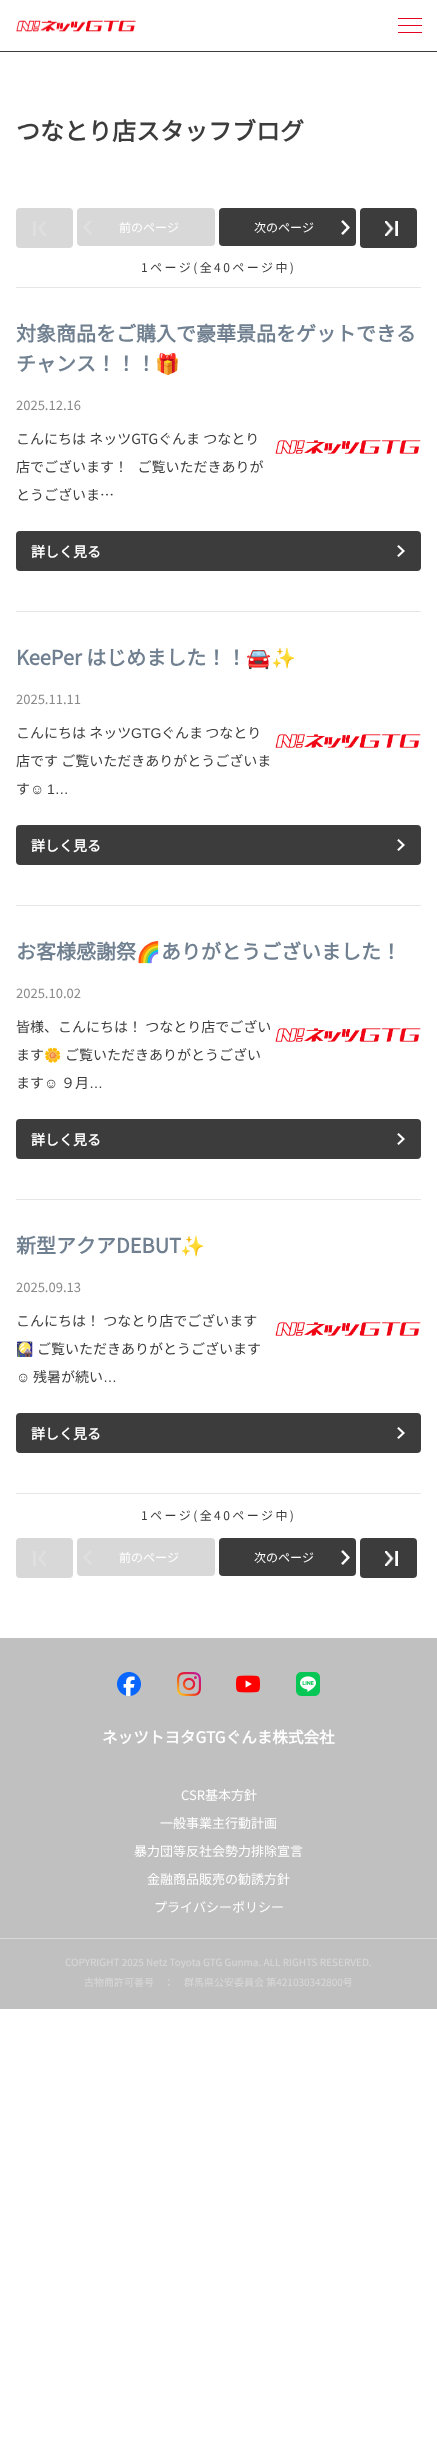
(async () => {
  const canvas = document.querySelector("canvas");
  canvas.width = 437;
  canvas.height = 2442;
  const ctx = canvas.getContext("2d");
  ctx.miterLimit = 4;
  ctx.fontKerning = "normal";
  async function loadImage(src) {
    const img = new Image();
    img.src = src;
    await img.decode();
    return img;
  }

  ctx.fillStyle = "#ffffff";
  ctx.fillRect(0, 0, 437, 2442);
  ctx.fillStyle = "#3c3c3c";
  ctx.fillRect(0, 51, 437, 1);
  ctx.drawImage(await loadImage("img/1.png"), 16, 20, 120, 13);
  for (const [x, y, w, h, color] of [
    [398, 18, 24, 1, "#e50322"],
    [398, 25, 24, 1, "#e50322"],
    [398, 32, 24, 1, "#e50322"],
    [16, 287, 405, 1, "#e6e6e6"],
  ]) {
    ctx.fillStyle = color;
    ctx.fillRect(x, y, w, h);
  }
  ctx.fillStyle = "#d8d8d8";
  ctx.beginPath();
  ctx.roundRect(16, 208, 57, 40, 4);
  ctx.fill();
  ctx.drawImage(await loadImage("img/2.png"), 33, 221, 13, 15);
  ctx.beginPath();
  ctx.roundRect(77, 208, 138, 38, 4);
  ctx.fill();
  ctx.drawImage(await loadImage("img/3.png"), 83, 220, 9, 15);
  ctx.fillStyle = "#3c3c3c";
  ctx.beginPath();
  ctx.roundRect(219, 208, 137, 38, 4);
  ctx.fill();
  ctx.drawImage(await loadImage("img/4.png"), 341, 220, 9, 15);
  ctx.beginPath();
  ctx.roundRect(360, 208, 57, 40, 4);
  ctx.fill();
  ctx.drawImage(await loadImage("img/5.png"), 385, 221, 13, 15);
  ctx.fillStyle = "#e6e6e6";
  ctx.fillRect(16, 611, 405, 1);
  ctx.drawImage(await loadImage("img/6.png"), 275, 440, 146, 14);
  ctx.fillStyle = "#3c3c3c";
  ctx.beginPath();
  ctx.roundRect(16, 531, 405, 40, 4);
  ctx.fill();
  ctx.drawImage(await loadImage("img/7.png"), 397, 545, 8, 12);
  ctx.fillStyle = "#e6e6e6";
  ctx.fillRect(16, 905, 405, 1);
  ctx.drawImage(await loadImage("img/6.png"), 275, 734, 146, 14);
  ctx.fillStyle = "#3c3c3c";
  ctx.beginPath();
  ctx.roundRect(16, 825, 405, 40, 4);
  ctx.fill();
  ctx.drawImage(await loadImage("img/7.png"), 397, 839, 8, 12);
  ctx.fillStyle = "#e6e6e6";
  ctx.fillRect(16, 1199, 405, 1);
  ctx.drawImage(await loadImage("img/6.png"), 275, 1028, 146, 14);
  ctx.fillStyle = "#3c3c3c";
  ctx.beginPath();
  ctx.roundRect(16, 1119, 405, 40, 4);
  ctx.fill();
  ctx.drawImage(await loadImage("img/7.png"), 397, 1133, 8, 12);
  ctx.fillStyle = "#e6e6e6";
  ctx.fillRect(16, 1493, 405, 1);
  ctx.drawImage(await loadImage("img/6.png"), 275, 1322, 146, 14);
  ctx.fillStyle = "#3c3c3c";
  ctx.beginPath();
  ctx.roundRect(16, 1413, 405, 40, 4);
  ctx.fill();
  ctx.drawImage(await loadImage("img/7.png"), 397, 1427, 8, 12);
  ctx.fillStyle = "#d8d8d8";
  ctx.beginPath();
  ctx.roundRect(16, 1538, 57, 40, 4);
  ctx.fill();
  ctx.drawImage(await loadImage("img/2.png"), 33, 1551, 13, 15);
  ctx.beginPath();
  ctx.roundRect(77, 1538, 138, 38, 4);
  ctx.fill();
  ctx.drawImage(await loadImage("img/3.png"), 83, 1550, 9, 15);
  ctx.fillStyle = "#3c3c3c";
  ctx.beginPath();
  ctx.roundRect(219, 1538, 137, 38, 4);
  ctx.fill();
  ctx.drawImage(await loadImage("img/4.png"), 341, 1550, 9, 15);
  ctx.beginPath();
  ctx.roundRect(360, 1538, 57, 40, 4);
  ctx.fill();
  ctx.drawImage(await loadImage("img/5.png"), 385, 1551, 13, 15);
  ctx.fillStyle = "#c0c0c0";
  ctx.fillRect(0, 1638, 437, 371);
  ctx.fillStyle = "#d9d9d9";
  ctx.fillRect(0, 1938, 437, 1);
  ctx.drawImage(await loadImage("img/8.png"), 117, 1672, 24, 24);
  ctx.drawImage(await loadImage("img/9.png"), 177, 1672, 24, 24);
  ctx.drawImage(await loadImage("img/10.png"), 236, 1675, 24, 18);
  ctx.drawImage(await loadImage("img/11.png"), 296, 1672, 24, 24);
  ctx.font = "bold 24px Noto Sans JP";
  ctx.fillStyle = "#3c3c3c";
  ctx.fillText("つなとり店スタッフブログ", 16, 140);
  ctx.font = "100 12px Noto Sans JP";
  ctx.fillStyle = "#ffffff";
  ctx.fillText("前のページ", 119, 232);
  ctx.fillText("次のページ", 254, 232);
  ctx.letterSpacing = "2.4px";
  ctx.fillStyle = "#3c3c3c";
  ctx.fillText("1ページ(全40ページ中)", 141, 272);
  ctx.letterSpacing = "0px";
  ctx.font = "bold 20px Noto Sans JP";
  ctx.fillStyle = "#708090";
  ctx.fillText("対象商品をご購入で豪華景品をゲットできる", 16, 341);
  ctx.fillText("チャンス！！！", 16, 371);
  ctx.font = "bold 20px Noto Color Emoji";
  ctx.fillText("🎁", 155, 371);
  ctx.font = "100 13px Noto Sans JP";
  ctx.fillStyle = "#8a8a8a";
  ctx.fillText("2025.12.16", 16, 410);
  ctx.font = "100 14px Noto Sans JP";
  ctx.fillStyle = "#3c3c3c";
  for (const [text, x, y] of [
    ["こんにちは ネッツGTGぐんま つなとり", 16, 444],
    ["店でございます！   ご覧いただきありが", 16, 472],
    ["とうございま…", 16, 500],
  ]) {
    ctx.fillText(text, x, y);
  }
  ctx.font = "bold 14px Noto Sans JP";
  ctx.fillStyle = "#ffffff";
  ctx.fillText("詳しく見る", 31, 557);
  ctx.font = "bold 20px Noto Sans JP";
  ctx.fillStyle = "#708090";
  ctx.fillText("KeePer はじめました！！", 16, 665);
  ctx.font = "bold 20px Noto Color Emoji";
  ctx.fillText("🚘✨", 246, 665);
  ctx.font = "100 13px Noto Sans JP";
  ctx.fillStyle = "#8a8a8a";
  ctx.fillText("2025.11.11", 16, 704);
  ctx.font = "100 14px Noto Sans JP";
  ctx.fillStyle = "#3c3c3c";
  ctx.fillText("こんにちは ネッツ", 16, 738);
  ctx.font = "14px Liberation Sans";
  ctx.fillText("GTG", 131, 738);
  ctx.wordSpacing = "-1px";
  ctx.font = "100 14px Noto Sans JP";
  ctx.fillText("ぐんま つなとり", 161, 738);
  ctx.wordSpacing = "0px";
  ctx.fillText("店です ご覧いただきありがとうございま", 16, 766);
  ctx.fillText("す", 16, 794);
  ctx.font = "14px Liberation Sans";
  ctx.fillText("☺", 30, 794);
  ctx.fillText("1…", 47, 794);
  ctx.font = "bold 14px Noto Sans JP";
  ctx.fillStyle = "#ffffff";
  ctx.fillText("詳しく見る", 31, 851);
  ctx.font = "bold 20px Noto Sans JP";
  ctx.fillStyle = "#708090";
  ctx.fillText("お客様感謝祭", 16, 959);
  ctx.font = "bold 20px Noto Color Emoji";
  ctx.fillText("🌈", 136, 959);
  ctx.font = "bold 20px Noto Sans JP";
  ctx.fillText("ありがとうございました！", 161, 959);
  ctx.font = "100 13px Noto Sans JP";
  ctx.fillStyle = "#8a8a8a";
  ctx.fillText("2025.10.02", 16, 998);
  ctx.font = "100 14px Noto Sans JP";
  ctx.fillStyle = "#3c3c3c";
  ctx.fillText("皆様、こんにちは！ つなとり店でござい", 16, 1032);
  ctx.fillText("ます", 16, 1060);
  ctx.font = "14px Noto Color Emoji";
  ctx.fillText("🌼", 44, 1060);
  ctx.font = "100 14px Noto Sans JP";
  ctx.fillText("ご覧いただきありがとうござい", 65, 1060);
  ctx.fillText("ます", 16, 1088);
  ctx.font = "14px Liberation Sans";
  ctx.fillText("☺", 44, 1088);
  ctx.font = "100 14px Noto Sans JP";
  ctx.fillText("９月", 61, 1088);
  ctx.font = "14px Liberation Sans";
  ctx.fillText("…", 89, 1088);
  ctx.font = "bold 14px Noto Sans JP";
  ctx.fillStyle = "#ffffff";
  ctx.fillText("詳しく見る", 31, 1145);
  ctx.font = "bold 20px Noto Sans JP";
  ctx.fillStyle = "#708090";
  ctx.fillText("新型アクアDEBUT", 16, 1253);
  ctx.font = "bold 20px Noto Color Emoji";
  ctx.fillText("✨", 180, 1253);
  ctx.font = "100 13px Noto Sans JP";
  ctx.fillStyle = "#8a8a8a";
  ctx.fillText("2025.09.13", 16, 1292);
  ctx.font = "100 14px Noto Sans JP";
  ctx.fillStyle = "#3c3c3c";
  ctx.fillText("こんにちは！ つなとり店でございます", 16, 1326);
  ctx.font = "14px Noto Color Emoji";
  ctx.fillText("🎑", 16, 1354);
  ctx.font = "100 14px Noto Sans JP";
  ctx.fillText("ご覧いただきありがとうございます", 37, 1354);
  ctx.font = "14px Liberation Sans";
  ctx.fillText("☺", 16, 1382);
  ctx.font = "100 14px Noto Sans JP";
  ctx.fillText("残暑が続い", 33, 1382);
  ctx.font = "14px Liberation Sans";
  ctx.fillText("…", 103, 1382);
  ctx.font = "bold 14px Noto Sans JP";
  ctx.fillStyle = "#ffffff";
  ctx.fillText("詳しく見る", 31, 1439);
  ctx.letterSpacing = "2.4px";
  ctx.font = "100 12px Noto Sans JP";
  ctx.fillStyle = "#3c3c3c";
  ctx.fillText("1ページ(全40ページ中)", 141, 1520);
  ctx.letterSpacing = "0px";
  ctx.fillStyle = "#ffffff";
  ctx.fillText("前のページ", 119, 1562);
  ctx.fillText("次のページ", 254, 1562);
  ctx.font = "bold 15.6px Noto Sans JP";
  ctx.fillText("ネッツトヨタGTGぐんま株式会社", 102, 1743);
  ctx.font = "100 13px Noto Sans JP";
  for (const [text, x, y] of [
    ["CSR基本方針", 181, 1800],
    ["一般事業主行動計画", 160, 1828],
    ["暴力団等反社会勢力排除宣言", 134, 1856],
    ["金融商品販売の勧誘方針", 147, 1884],
    ["プライバシーポリシー", 154, 1912],
  ]) {
    ctx.fillText(text, x, y);
  }
  ctx.font = "100 10px Noto Sans JP";
  ctx.fillStyle = "#d9d9d9";
  ctx.fillText("COPYRIGHT 2025 Netz Toyota GTG Gunma. ALL RIGHTS RESERVED.", 65, 1966);
  ctx.fillText("古物商許可番号　：　群馬県公安委員会 第421030342800号", 84, 1986);
})();
